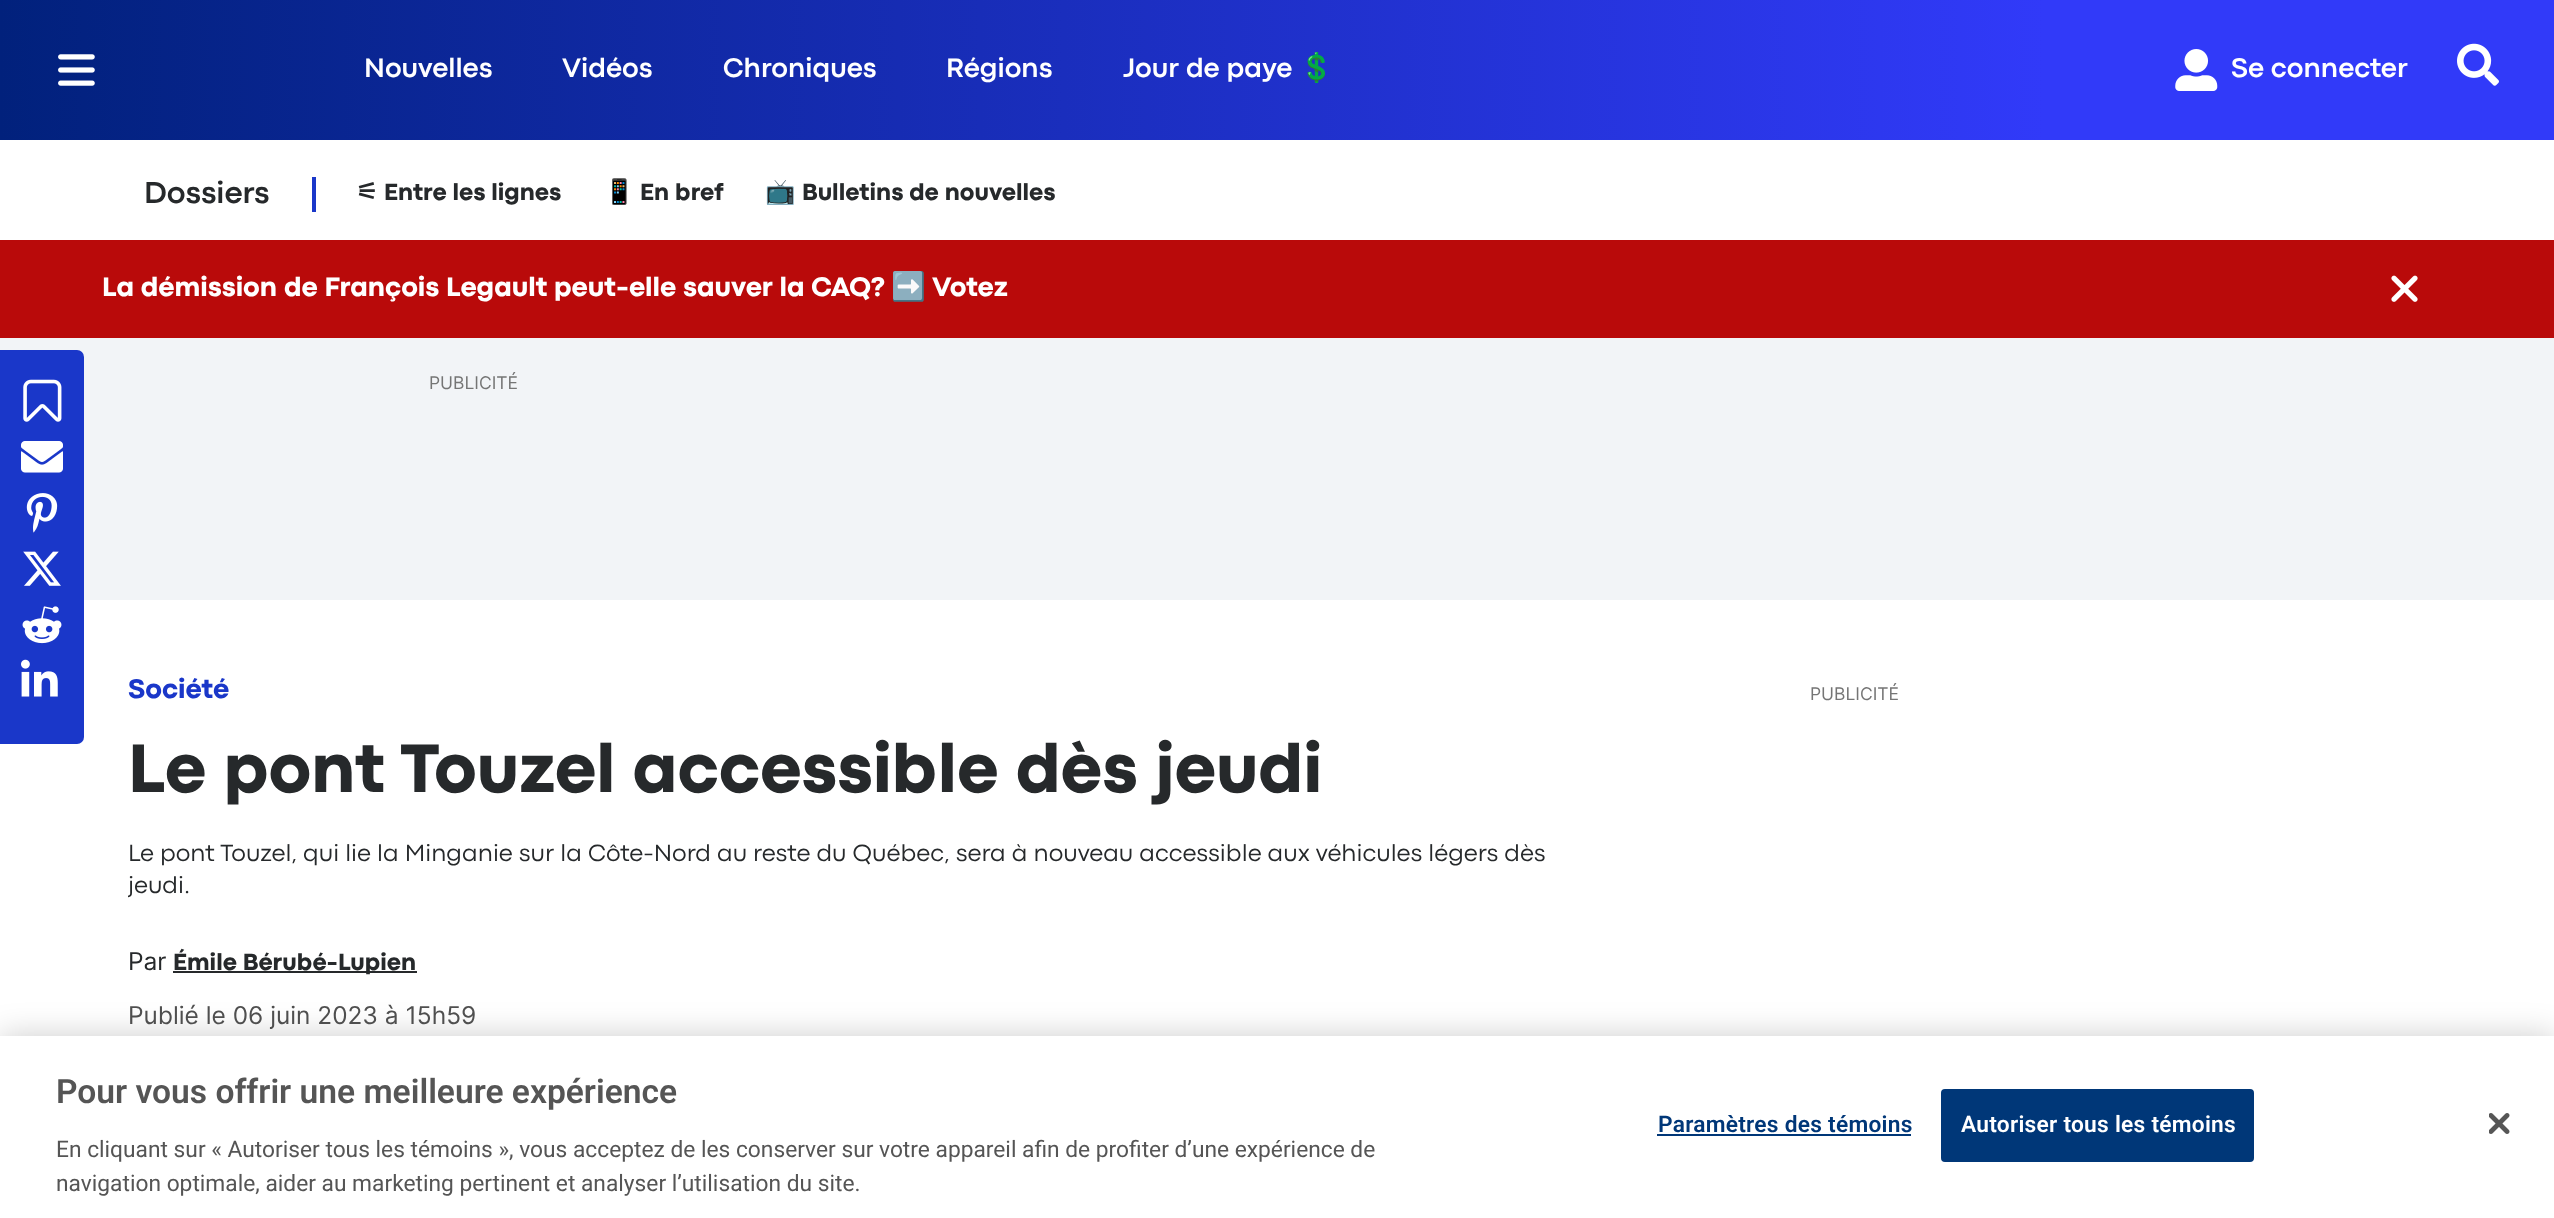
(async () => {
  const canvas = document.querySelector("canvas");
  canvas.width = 2554;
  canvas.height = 1218;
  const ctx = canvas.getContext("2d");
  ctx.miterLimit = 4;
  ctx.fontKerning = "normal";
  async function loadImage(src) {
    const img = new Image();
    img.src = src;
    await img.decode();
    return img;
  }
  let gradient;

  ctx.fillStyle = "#ffffff";
  ctx.fillRect(0, 0, 2554, 1218);
  gradient = ctx.createLinearGradient(0, 70, 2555, 70);
  gradient.addColorStop(0, "#01217c");
  gradient.addColorStop(0.8, "#313af9");
  ctx.fillStyle = gradient;
  ctx.fillRect(0, 0, 2554, 140);
  ctx.drawImage(await loadImage("img/1.png"), 58, 54, 37, 32);
  ctx.drawImage(await loadImage("img/2.png"), 2175, 49, 43, 42);
  ctx.drawImage(await loadImage("img/3.png"), 2457, 43, 42, 43);
  ctx.fillStyle = "#1a37c9";
  ctx.fillRect(312, 177, 4, 35);
  ctx.fillStyle = "#b90a0a";
  ctx.fillRect(0, 240, 2554, 98);
  ctx.drawImage(await loadImage("img/4.png"), 2391, 275, 27, 27);
  ctx.fillStyle = "#f2f4f7";
  ctx.fillRect(0, 338, 2554, 262);
  ctx.fillStyle = "#1a37c9";
  ctx.beginPath();
  ctx.roundRect(0, 350, 84, 394, [0, 7, 7, 0]);
  ctx.fill();
  ctx.drawImage(await loadImage("img/5.png"), 23, 379, 39, 43);
  ctx.drawImage(await loadImage("img/6.png"), 21, 441, 42, 32);
  ctx.drawImage(await loadImage("img/7.png"), 26, 493, 32, 40);
  ctx.drawImage(await loadImage("img/8.png"), 23, 551, 38, 35);
  ctx.drawImage(await loadImage("img/9.png"), 22, 606, 40, 38);
  ctx.drawImage(await loadImage("img/10.png"), 21, 659, 37, 38);
  ctx.fillStyle = "#26292b";
  ctx.fillRect(173, 971, 244, 2);
  ctx.fillStyle = "rgba(0, 0, 0, 0.2)";
  ctx.filter = "blur(16px)";
  ctx.beginPath();
  ctx.rect(0, 1036, 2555, 182);
  ctx.fill();
  ctx.filter = "none";
  ctx.fillStyle = "#ffffff";
  ctx.fillRect(0, 1036, 2554, 182);
  ctx.fillStyle = "#003778";
  ctx.fillRect(1657, 1134, 254, 2);
  ctx.beginPath();
  ctx.roundRect(1942, 1090, 311, 71, 3);
  ctx.fill();
  ctx.strokeStyle = "#003778";
  ctx.lineWidth = 2;
  ctx.stroke();
  ctx.drawImage(await loadImage("img/11.png"), 2489, 1113, 21, 21);
  ctx.font = "bold 28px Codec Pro";
  ctx.fillStyle = "#ffffff";
  for (const [text, x, y] of [
    ["Nouvelles", 364, 77],
    ["Vidéos", 562, 77],
    ["Chroniques", 723, 77],
    ["Régions", 946, 77],
    ["Jour de paye", 1123, 77],
  ]) {
    ctx.fillText(text, x, y);
  }
  ctx.font = "bold 28px Noto Color Emoji";
  ctx.fillText("💲", 1299, 77);
  ctx.font = "bold 28px Codec Pro";
  ctx.fillText("Se connecter", 2231, 77);
  ctx.font = "bold 31.5px Codec Pro";
  ctx.fillStyle = "#26292b";
  ctx.fillText("Dossiers", 144, 203);
  ctx.font = "bold 24.5px DejaVu Sans";
  ctx.fillText("⚟", 356, 200);
  ctx.font = "800 24.5px Codec Pro";
  ctx.fillText("Entre les lignes", 384, 200);
  ctx.font = "bold 24.5px Noto Color Emoji";
  ctx.fillText("📱", 604, 200);
  ctx.font = "800 24.5px Codec Pro";
  ctx.fillText("En bref", 640, 200);
  ctx.font = "bold 24.5px Noto Color Emoji";
  ctx.fillText("📺", 765, 200);
  ctx.font = "800 24.5px Codec Pro";
  ctx.fillText("Bulletins de nouvelles", 802, 200);
  ctx.font = "800 28px Codec Pro";
  ctx.fillStyle = "#ffffff";
  ctx.fillText("La démission de François Legault peut-elle sauver la CAQ?", 102, 296);
  ctx.font = "bold 28px Noto Color Emoji";
  ctx.fillText("➡️", 891, 296);
  ctx.font = "800 28px Codec Pro";
  ctx.fillText("Votez", 932, 296);
  ctx.font = "17.5px Inter";
  ctx.fillStyle = "#757575";
  ctx.fillText("PUBLICITÉ", 429, 389);
  ctx.font = "800 28px Codec Pro";
  ctx.fillStyle = "#1a37c9";
  ctx.fillText("Société", 128, 698);
  ctx.font = "800 71.7px Codec Pro";
  ctx.fillStyle = "#26292b";
  ctx.fillText("Le pont Touzel accessible dès jeudi", 128, 792);
  ctx.font = "300 24.5px Codec Pro";
  ctx.fillText("Le pont Touzel, qui lie la Minganie sur la Côte-Nord au reste du Québec, sera à nouveau accessible aux véhicules légers dès", 128, 861);
  ctx.save();
  ctx.beginPath();
  ctx.rect(128, 838, 1477, 63);
  ctx.clip();
  ctx.fillText("jeudi.", 128, 893);
  ctx.restore();
  ctx.font = "24.5px Inter";
  ctx.fillText("Par", 128, 970);
  ctx.font = "800 24.5px Codec Pro";
  ctx.fillText("Émile Bérubé-Lupien", 173, 970);
  ctx.font = "24.5px Inter";
  ctx.fillStyle = "#4f4f4f";
  ctx.fillText("Publié le 06 juin 2023 à 15h59", 128, 1024);
  ctx.font = "17.5px Inter";
  ctx.fillStyle = "#757575";
  ctx.fillText("PUBLICITÉ", 1810, 700);
  ctx.font = "600 33.6px Roboto";
  ctx.fillStyle = "#555555";
  ctx.fillText("Pour vous offrir une meilleure expérience", 56, 1103);
  ctx.font = "22.75px Roboto";
  ctx.fillText("En cliquant sur « Autoriser tous les témoins », vous acceptez de les conserver sur votre appareil afin de profiter d’une expérience de", 56, 1157);
  ctx.fillText("navigation optimale, aider au marketing pertinent et analyser l’utilisation du site.", 56, 1191);
  ctx.letterSpacing = "0.25px";
  ctx.font = "600 22.75px Roboto";
  ctx.fillStyle = "#003778";
  ctx.fillText("Paramètres des témoins", 1658, 1132);
  ctx.fillStyle = "#ffffff";
  ctx.fillText("Autoriser tous les témoins", 1961, 1132);
})();
